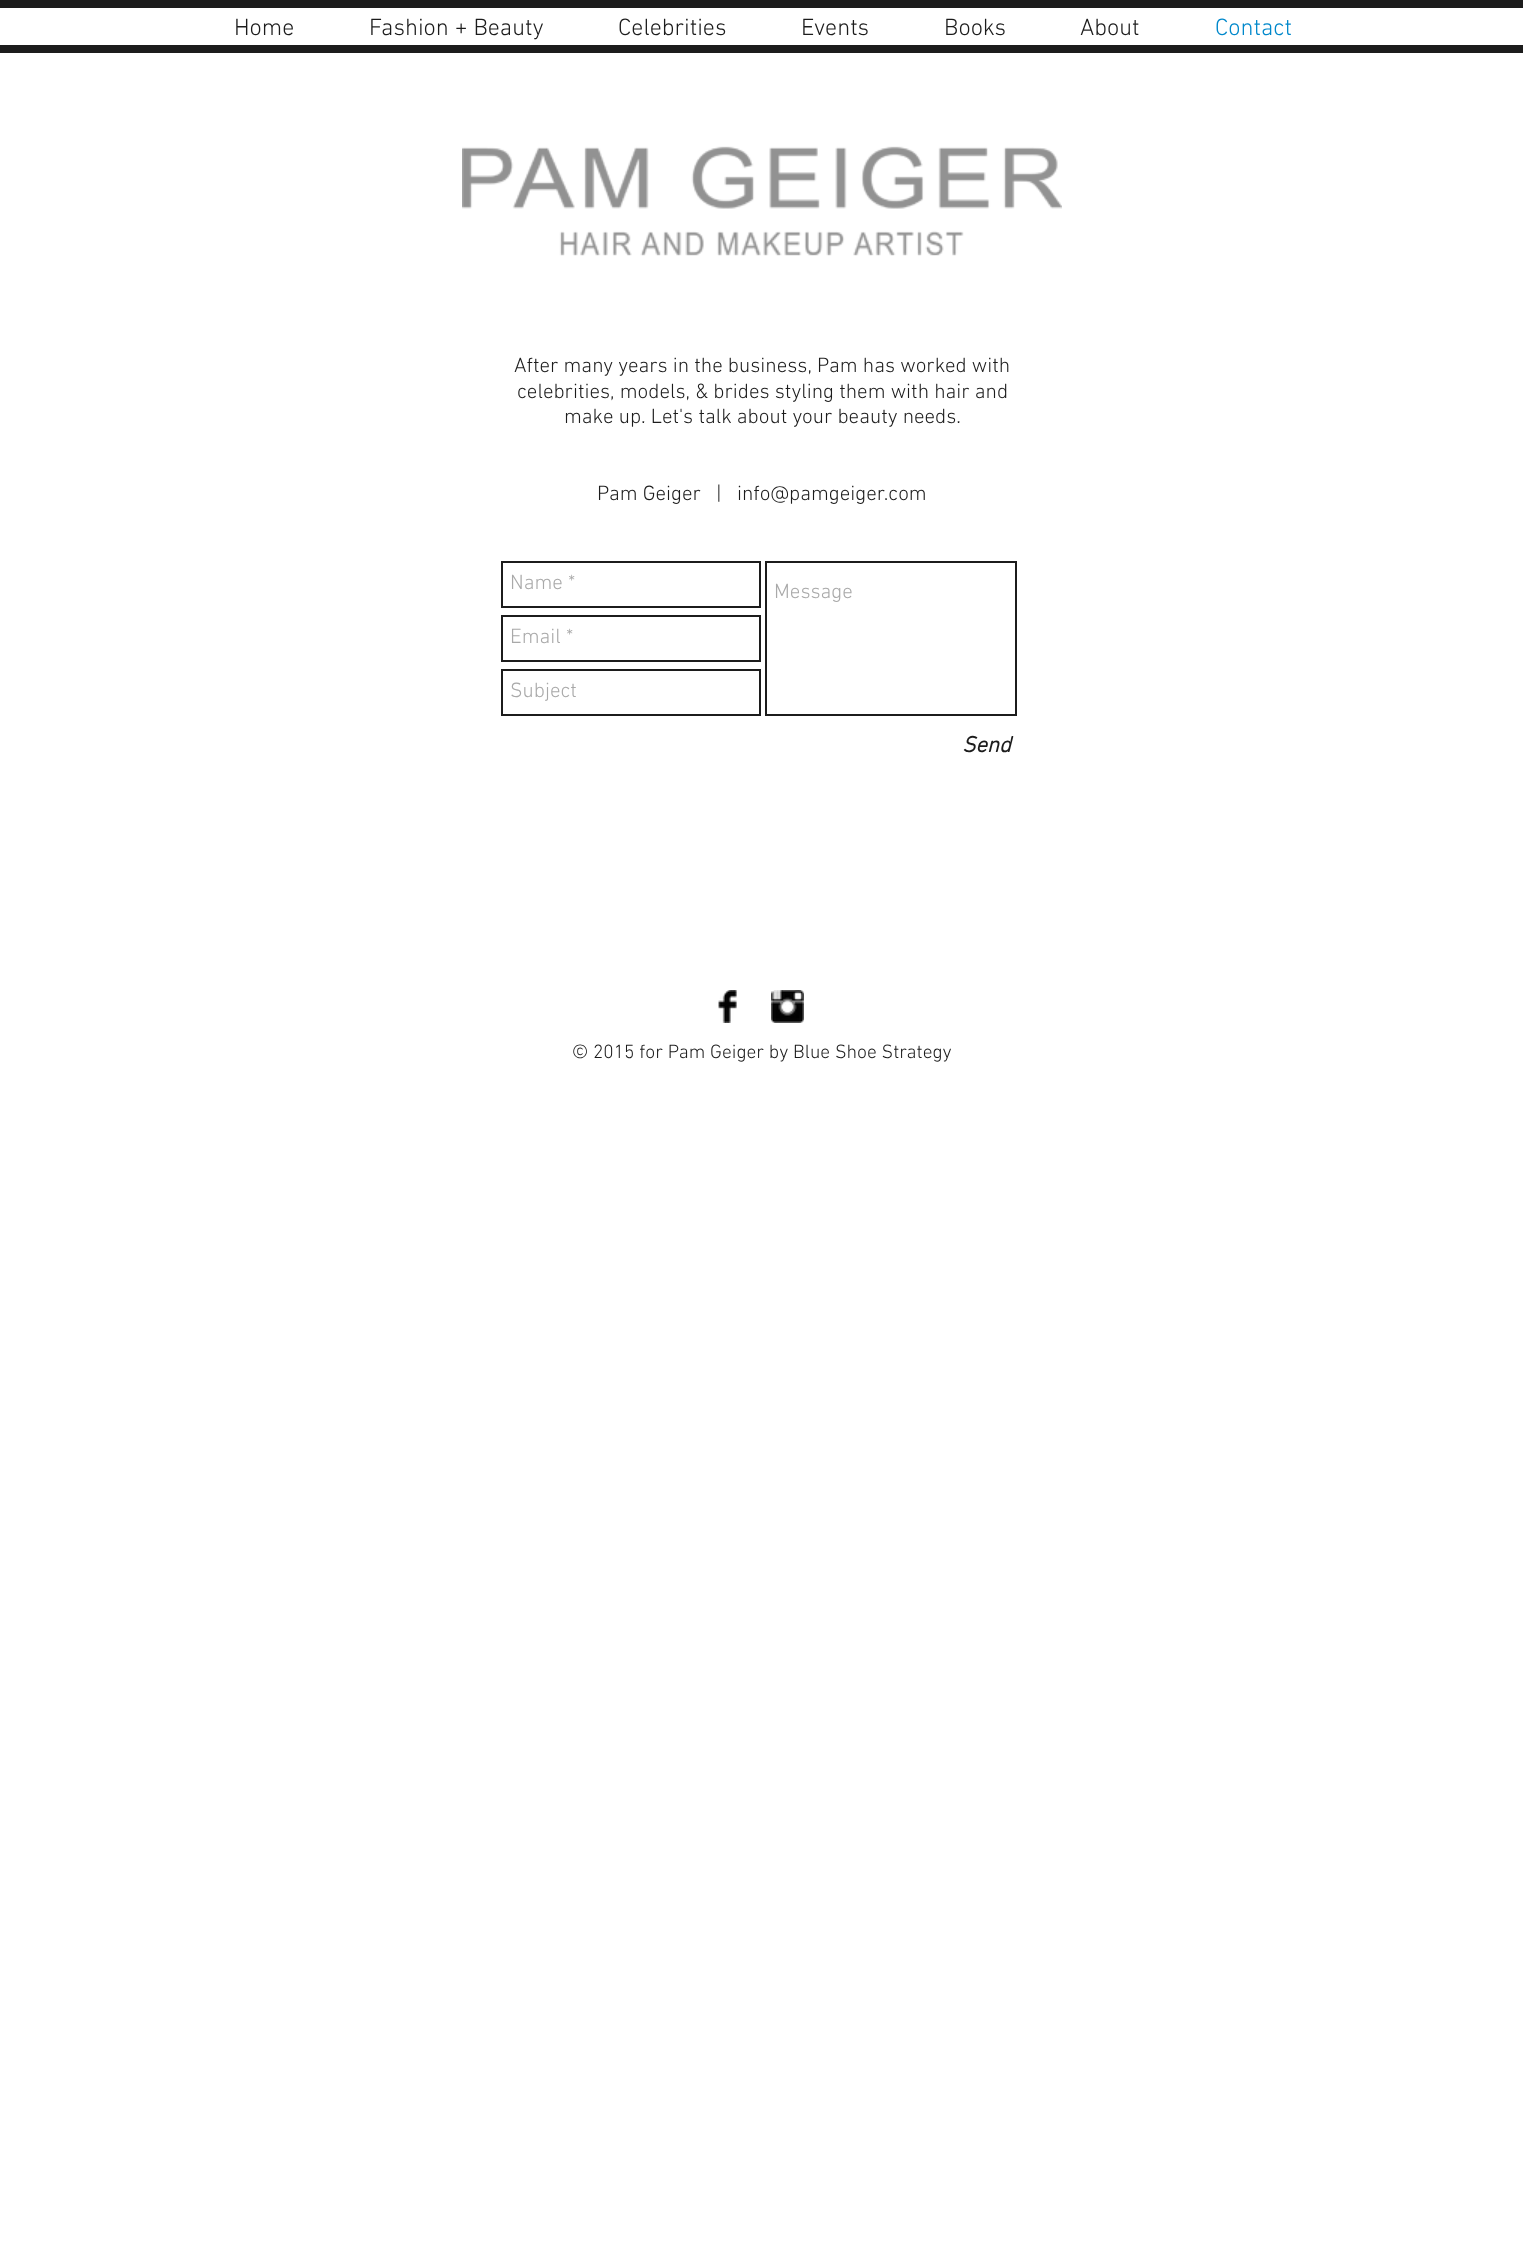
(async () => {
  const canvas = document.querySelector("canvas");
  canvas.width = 1523;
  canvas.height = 2260;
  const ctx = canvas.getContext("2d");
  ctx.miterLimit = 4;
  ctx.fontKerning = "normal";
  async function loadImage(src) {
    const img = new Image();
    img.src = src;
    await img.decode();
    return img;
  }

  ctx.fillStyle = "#ffffff";
  ctx.fillRect(0, 0, 1523, 2260);
  ctx.fillStyle = "#1c1c1c";
  ctx.fillRect(0, 0, 1523, 8);
  ctx.fillRect(0, 45, 1523, 8);
  ctx.drawImage(await loadImage("img/1.png"), 462, 146, 600, 110);
  ctx.strokeStyle = "#1c1c1c";
  ctx.lineWidth = 2;
  ctx.strokeRect(502, 562, 258, 45);
  ctx.strokeRect(766, 562, 250, 153);
  ctx.strokeRect(502, 616, 258, 45);
  ctx.strokeRect(502, 670, 258, 45);
  ctx.drawImage(await loadImage("img/2.png"), 718, 990, 19, 33);
  ctx.drawImage(await loadImage("img/3.png"), 771, 990, 33, 33);
  ctx.font = "300 24px 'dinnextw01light'";
  for (const [text, x, y] of [
    ["Home", 234, 35],
    ["Fashion + Beauty", 369, 35],
    ["Celebrities", 618, 35],
    ["Events", 801, 35],
    ["Books", 944, 35],
    ["About", 1080, 35],
  ]) {
    ctx.fillText(text, x, y);
  }
  ctx.fillStyle = "#0088cb";
  ctx.fillText("Contact", 1215, 35);
  ctx.font = "300 21px 'dinnextw01light'";
  ctx.fillStyle = "#1c1c1c";
  for (const [text, x, y] of [
    ["After many years in the business, Pam has worked with", 514, 372],
    ["celebrities, models, & brides styling them with hair and", 517, 398],
    ["make up. Let's talk about your beauty needs.", 564, 423],
    ["Pam Geiger   |", 597, 500],
    ["info@pamgeiger.com", 737, 500],
  ]) {
    ctx.fillText(text, x, y);
  }
  ctx.fillStyle = "#a9a9a9";
  for (const [text, x, y] of [
    ["Name *", 510, 589],
    ["Message", 774, 598],
    ["Email *", 510, 643],
    ["Subject", 510, 697],
  ]) {
    ctx.fillText(text, x, y);
  }
  ctx.font = "italic bold 22.5px 'dinnextw01light'";
  ctx.fillStyle = "#1c1c1c";
  ctx.fillText("Send", 962, 752);
  ctx.font = "300 19.5px 'dinnextw01light'";
  ctx.fillText("© 2015 for Pam Geiger by Blue Shoe Strategy", 572, 1058);
})();
